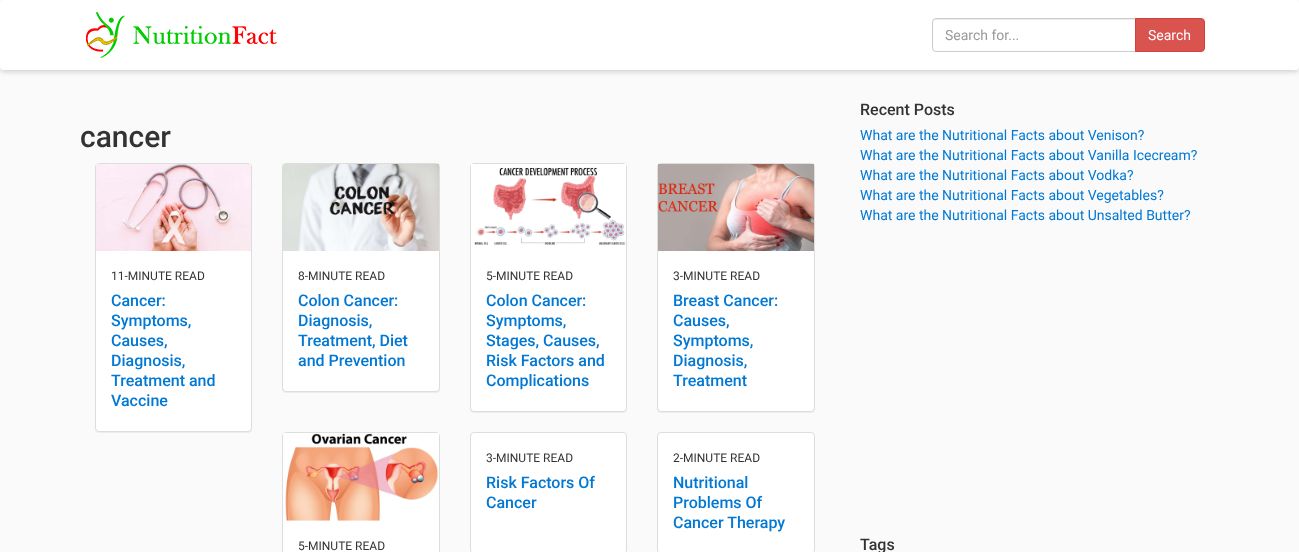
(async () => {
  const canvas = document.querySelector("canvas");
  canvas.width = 1299;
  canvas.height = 552;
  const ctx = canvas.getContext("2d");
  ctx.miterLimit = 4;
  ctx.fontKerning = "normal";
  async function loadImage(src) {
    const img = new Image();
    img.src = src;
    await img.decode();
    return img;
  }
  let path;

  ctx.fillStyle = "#ffffff";
  ctx.fillRect(0, 0, 1299, 552);
  ctx.fillStyle = "#fafafa";
  ctx.fillRect(0, 70, 1299, 482);
  ctx.fillStyle = "rgba(0, 0, 0, 0.16)";
  ctx.filter = "blur(2.5px)";
  ctx.beginPath();
  ctx.roundRect(0, 2, 1299, 70, 4);
  ctx.fill();
  ctx.filter = "none";
  ctx.fillStyle = "#ffffff";
  ctx.beginPath();
  ctx.roundRect(0, 0, 1299, 70, 4);
  ctx.fill();
  ctx.drawImage(await loadImage("img/1.png"), 86, 12, 191, 46);
  ctx.fillStyle = "#ececec";
  path = new Path2D("M936 20H1135V19H936C934 19 933 21 933 23C933 21 934 20 936 20Z");
  ctx.fill(path);
  ctx.beginPath();
  ctx.roundRect(932.5, 18.5, 203, 33, [3.5, 0, 0, 3.5]);
  ctx.strokeStyle = "#cccccc";
  ctx.stroke();
  ctx.fillStyle = "#d9534f";
  ctx.beginPath();
  ctx.roundRect(1135.5, 18.5, 69, 33, [0, 3.5, 3.5, 0]);
  ctx.fill();
  ctx.strokeStyle = "#d43f3a";
  ctx.stroke();
  ctx.fillStyle = "rgba(0, 0, 0, 0.05)";
  ctx.filter = "blur(0.5px)";
  ctx.beginPath();
  ctx.roundRect(95, 164, 157, 269, 4);
  ctx.fill();
  ctx.filter = "none";
  ctx.fillStyle = "#ffffff";
  ctx.beginPath();
  ctx.roundRect(95.5, 163.5, 156, 268, 3.5);
  ctx.fill();
  ctx.strokeStyle = "#dddddd";
  ctx.stroke();
  ctx.drawImage(await loadImage("img/2.png"), 96, 164, 155, 87);
  ctx.fillStyle = "rgba(0, 0, 0, 0.05)";
  ctx.filter = "blur(0.5px)";
  ctx.beginPath();
  ctx.roundRect(282, 164, 158, 229, 4);
  ctx.fill();
  ctx.filter = "none";
  ctx.fillStyle = "#ffffff";
  ctx.beginPath();
  ctx.roundRect(282.5, 163.5, 157, 228, 3.5);
  ctx.fill();
  ctx.stroke();
  ctx.drawImage(await loadImage("img/3.png"), 283, 164, 156, 87);
  ctx.fillStyle = "rgba(0, 0, 0, 0.05)";
  ctx.filter = "blur(0.5px)";
  ctx.beginPath();
  ctx.roundRect(470, 164, 157, 249, 4);
  ctx.fill();
  ctx.filter = "none";
  ctx.fillStyle = "#ffffff";
  ctx.beginPath();
  ctx.roundRect(470.5, 163.5, 156, 248, 3.5);
  ctx.fill();
  ctx.stroke();
  ctx.drawImage(await loadImage("img/4.png"), 471, 164, 155, 81);
  ctx.fillStyle = "rgba(0, 0, 0, 0.05)";
  ctx.filter = "blur(0.5px)";
  ctx.beginPath();
  ctx.roundRect(657, 164, 158, 249, 4);
  ctx.fill();
  ctx.filter = "none";
  ctx.fillStyle = "#ffffff";
  ctx.beginPath();
  ctx.roundRect(657.5, 163.5, 157, 248, 3.5);
  ctx.fill();
  ctx.stroke();
  ctx.drawImage(await loadImage("img/5.png"), 658, 164, 156, 87);
  ctx.beginPath();
  ctx.roundRect(470.5, 432.5, 156, 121, 3.5);
  ctx.fill();
  ctx.stroke();
  ctx.beginPath();
  ctx.roundRect(657.5, 432.5, 157, 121, 3.5);
  ctx.fill();
  ctx.stroke();
  ctx.beginPath();
  ctx.roundRect(282.5, 432.5, 157, 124, 3.5);
  ctx.fill();
  ctx.stroke();
  ctx.drawImage(await loadImage("img/6.png"), 283, 433, 156, 88);
  ctx.font = "14px Roboto";
  ctx.fillStyle = "#999999";
  ctx.fillText("Search for...", 945, 40);
  ctx.fillStyle = "#ffffff";
  ctx.fillText("Search", 1148, 40);
  ctx.font = "500 30px Roboto";
  ctx.fillStyle = "#333333";
  ctx.fillText("cancer", 80, 147);
  ctx.font = "12px Roboto";
  ctx.fillText("11-MINUTE READ", 111, 280);
  ctx.font = "500 16px Roboto";
  ctx.fillStyle = "#0078d4";
  for (const [text, x, y] of [
    ["Cancer:", 111, 306],
    ["Symptoms,", 111, 326],
    ["Causes,", 111, 346],
    ["Diagnosis,", 111, 366],
    ["Treatment and", 111, 386],
    ["Vaccine", 111, 406],
  ]) {
    ctx.fillText(text, x, y);
  }
  ctx.font = "12px Roboto";
  ctx.fillStyle = "#333333";
  ctx.fillText("8-MINUTE READ", 298, 280);
  ctx.font = "500 16px Roboto";
  ctx.fillStyle = "#0078d4";
  for (const [text, x, y] of [
    ["Colon Cancer:", 298, 306],
    ["Diagnosis,", 298, 326],
    ["Treatment, Diet", 298, 346],
    ["and Prevention", 298, 366],
  ]) {
    ctx.fillText(text, x, y);
  }
  ctx.font = "12px Roboto";
  ctx.fillStyle = "#333333";
  ctx.fillText("5-MINUTE READ", 486, 280);
  ctx.font = "500 16px Roboto";
  ctx.fillStyle = "#0078d4";
  for (const [text, x, y] of [
    ["Colon Cancer:", 486, 306],
    ["Symptoms,", 486, 326],
    ["Stages, Causes,", 486, 346],
    ["Risk Factors and", 486, 366],
    ["Complications", 486, 386],
  ]) {
    ctx.fillText(text, x, y);
  }
  ctx.font = "12px Roboto";
  ctx.fillStyle = "#333333";
  ctx.fillText("3-MINUTE READ", 673, 280);
  ctx.font = "500 16px Roboto";
  ctx.fillStyle = "#0078d4";
  for (const [text, x, y] of [
    ["Breast Cancer:", 673, 306],
    ["Causes,", 673, 326],
    ["Symptoms,", 673, 346],
    ["Diagnosis,", 673, 366],
    ["Treatment", 673, 386],
  ]) {
    ctx.fillText(text, x, y);
  }
  ctx.font = "12px Roboto";
  ctx.fillStyle = "#333333";
  ctx.fillText("3-MINUTE READ", 486, 462);
  ctx.font = "500 16px Roboto";
  ctx.fillStyle = "#0078d4";
  ctx.fillText("Risk Factors Of", 486, 488);
  ctx.fillText("Cancer", 486, 508);
  ctx.font = "12px Roboto";
  ctx.fillStyle = "#333333";
  ctx.fillText("2-MINUTE READ", 673, 462);
  ctx.font = "500 16px Roboto";
  ctx.fillStyle = "#0078d4";
  for (const [text, x, y] of [
    ["Nutritional", 673, 488],
    ["Problems Of", 673, 508],
    ["Cancer Therapy", 673, 528],
  ]) {
    ctx.fillText(text, x, y);
  }
  ctx.font = "12px Roboto";
  ctx.fillStyle = "#333333";
  ctx.fillText("5-MINUTE READ", 298, 550);
  ctx.font = "500 16px Roboto";
  ctx.fillText("Recent Posts", 860, 115);
  ctx.font = "14px Roboto";
  ctx.fillStyle = "#0078d4";
  for (const [text, x, y] of [
    ["What are the Nutritional Facts about Venison?", 860, 140],
    ["What are the Nutritional Facts about Vanilla Icecream?", 860, 160],
    ["What are the Nutritional Facts about Vodka?", 860, 180],
    ["What are the Nutritional Facts about Vegetables?", 860, 200],
    ["What are the Nutritional Facts about Unsalted Butter?", 860, 220],
  ]) {
    ctx.fillText(text, x, y);
  }
  ctx.font = "500 16px Roboto";
  ctx.fillStyle = "#333333";
  ctx.fillText("Tags", 860, 550);
})();
